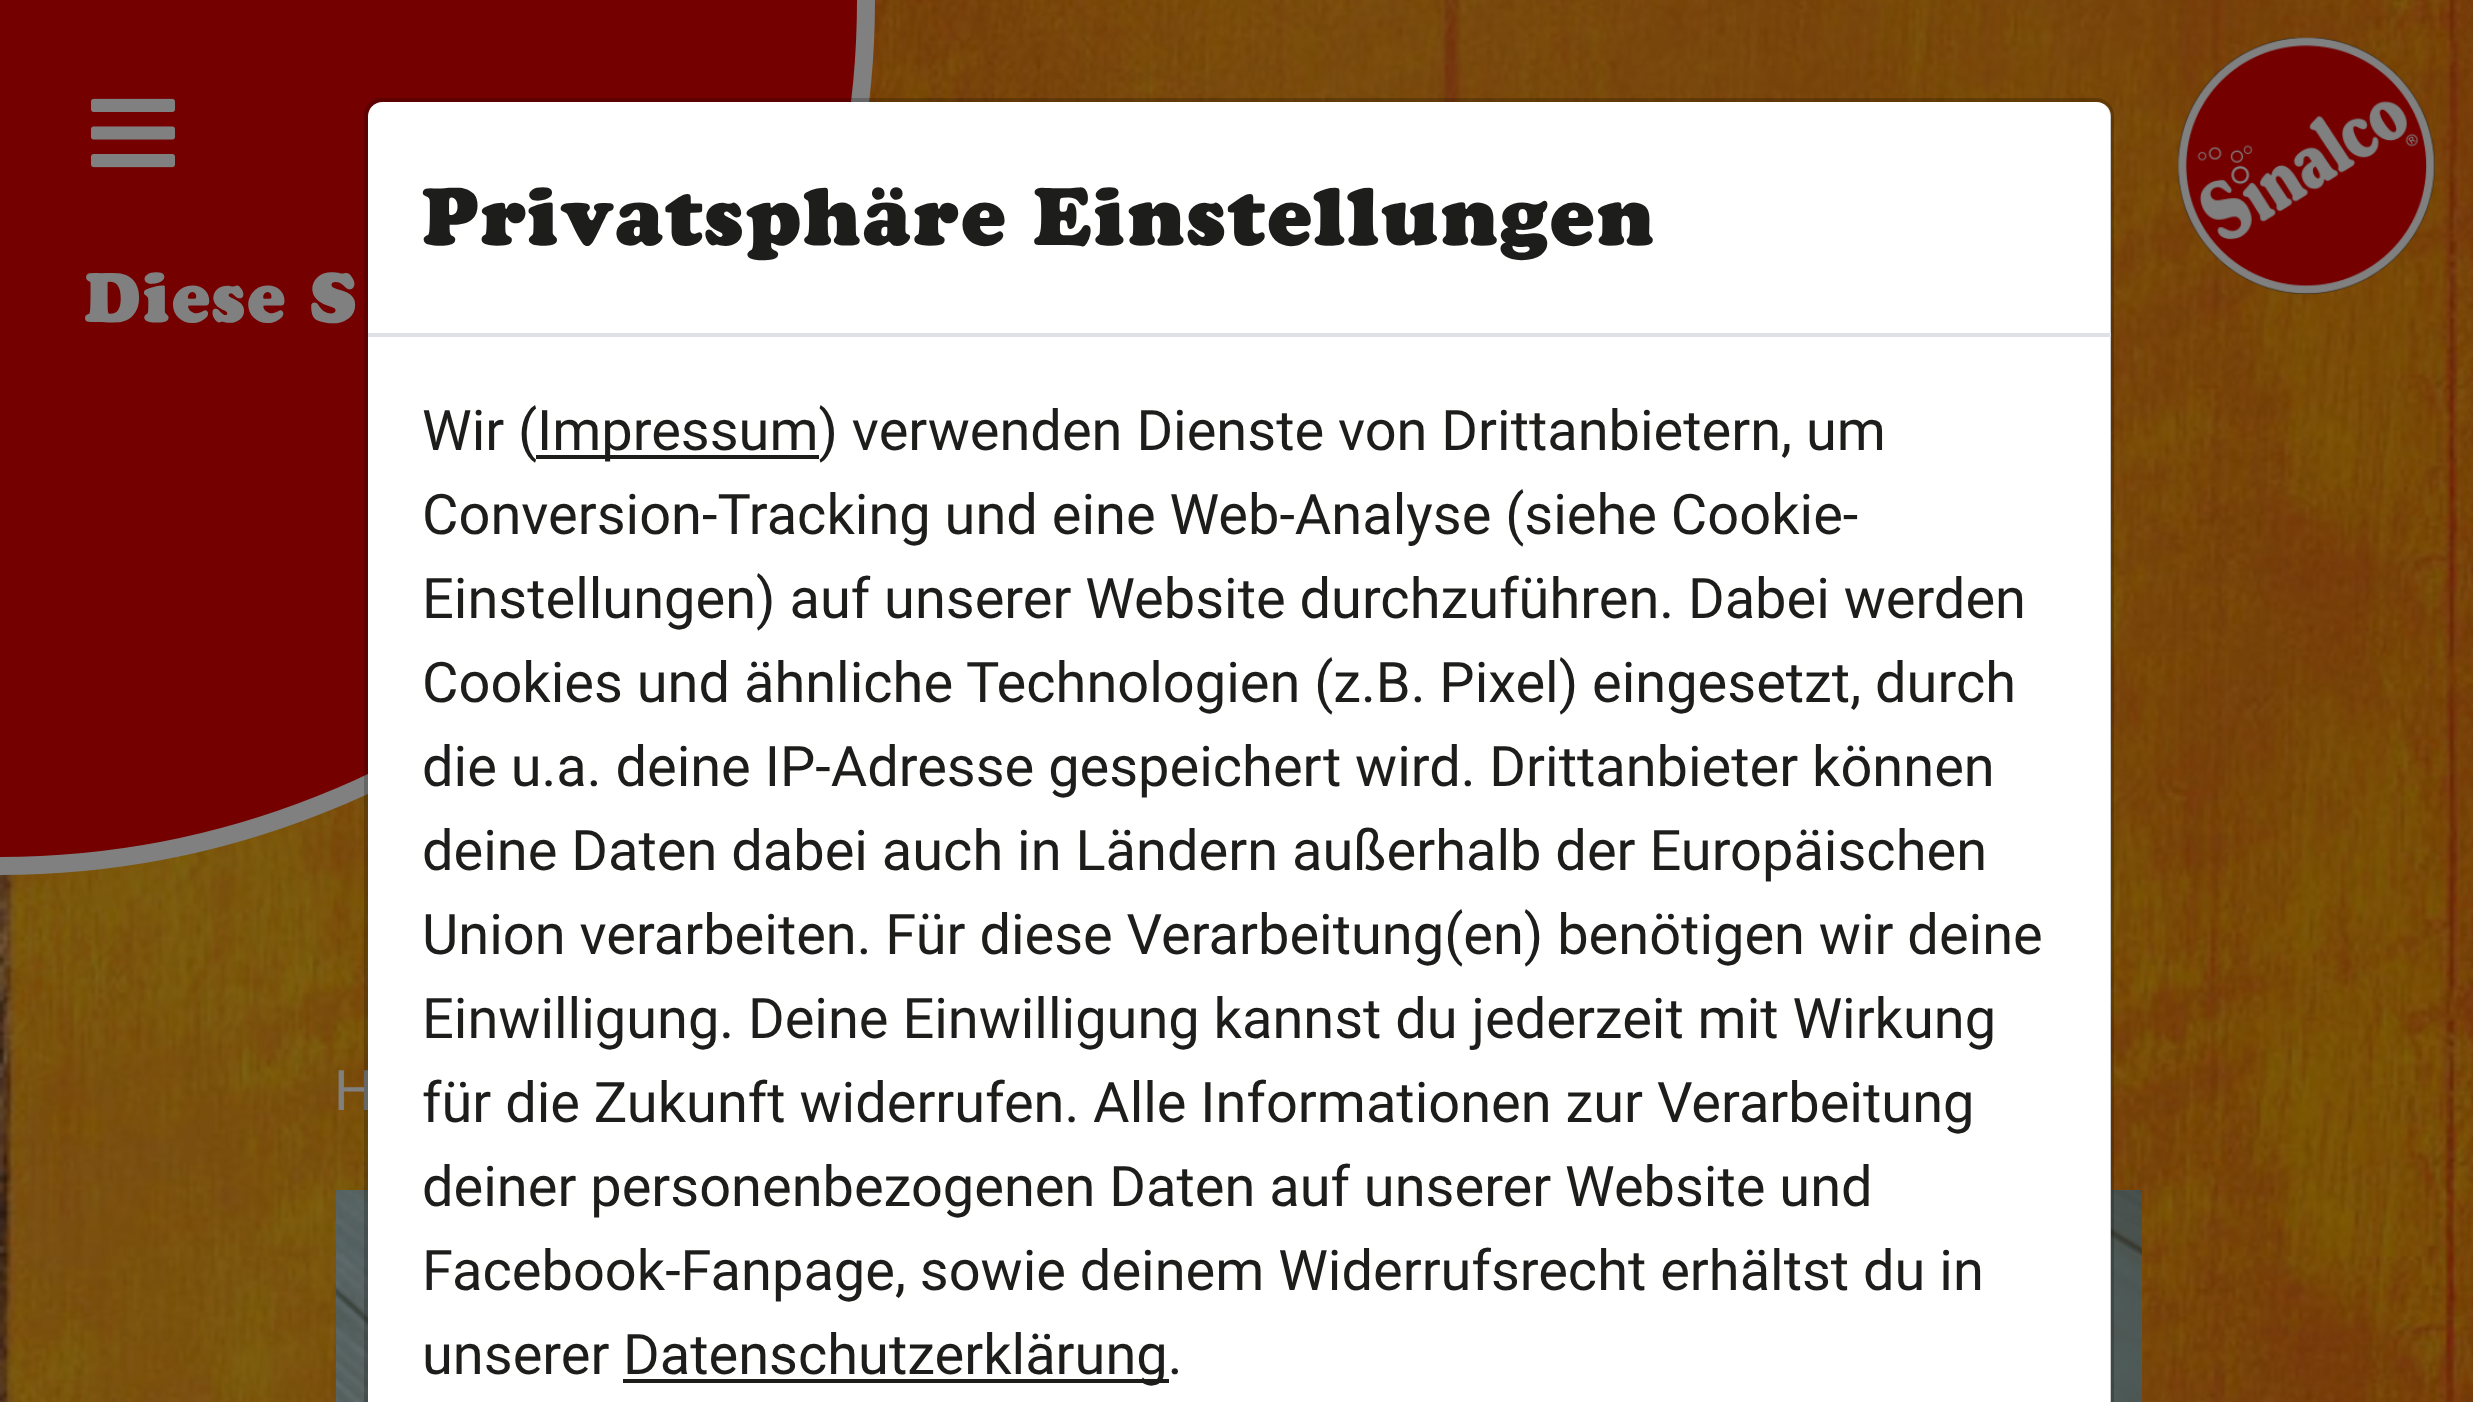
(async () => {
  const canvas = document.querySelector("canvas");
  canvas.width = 2473;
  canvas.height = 1402;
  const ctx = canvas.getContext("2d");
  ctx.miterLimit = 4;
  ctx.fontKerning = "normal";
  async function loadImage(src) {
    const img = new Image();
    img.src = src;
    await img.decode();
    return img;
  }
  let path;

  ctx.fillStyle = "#ffffff";
  ctx.fillRect(0, 0, 2473, 1402);
  ctx.drawImage(await loadImage("img/1.png"), 0, 0, 2473, 1402);
  ctx.fillStyle = "#740000";
  ctx.beginPath();
  ctx.arc(0, 0, 866, 0, Math.PI * 2);
  ctx.fill();
  ctx.strokeStyle = "#808080";
  ctx.lineWidth = 18;
  ctx.stroke();
  ctx.drawImage(await loadImage("img/2.png"), 2177, 37, 258, 258);
  ctx.drawImage(await loadImage("img/3.png"), 91, 98, 84, 70);
  ctx.drawImage(await loadImage("img/4.png"), 336, 1190, 1806, 212);
  ctx.letterSpacing = "1.75px";
  ctx.font = "67.5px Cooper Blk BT";
  ctx.fillStyle = "#808080";
  ctx.fillText("Diese S", 84, 322);
  ctx.letterSpacing = "0px";
  ctx.font = "56px Roboto";
  ctx.fillText("H", 334, 1110);
  ctx.fillStyle = "#ffffff";
  path = new Path2D("M382 102H2097C2104.5 102 2111 108.5 2111 116V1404H368V116C368 108.5 374.5 102 382 102Z");
  ctx.fill(path);
  ctx.beginPath();
  ctx.roundRect(366, 100, 1746, 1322, 16);
  ctx.strokeStyle = "rgba(0, 0, 0, 0.2)";
  ctx.lineWidth = 4;
  ctx.stroke();
  ctx.fillStyle = "#dee2e6";
  ctx.fillRect(368, 333, 1743, 4);
  ctx.letterSpacing = "1.95px";
  ctx.font = "78.4px Cooper Blk BT";
  ctx.fillStyle = "#1d1d1b";
  ctx.fillText("Privatsphäre Einstellungen", 422, 245);
  ctx.letterSpacing = "0px";
  ctx.font = "56px Roboto";
  ctx.fillText("Wir (", 422, 450);
  ctx.fillRect(536, 455, 283, 4);
  for (const [text, x, y] of [
    ["Impressum) verwenden Dienste von Drittanbietern, um", 537, 450],
    ["Conversion-Tracking und eine Web-Analyse (siehe Cookie-", 422, 534],
    ["Einstellungen) auf unserer Website durchzuführen. Dabei werden", 422, 618],
    ["Cookies und ähnliche Technologien (z.B. Pixel) eingesetzt, durch", 422, 702],
    ["die u.a. deine IP-Adresse gespeichert wird. Drittanbieter können", 422, 786],
    ["deine Daten dabei auch in Ländern außerhalb der Europäischen", 422, 870],
    ["Union verarbeiten. Für diese Verarbeitung(en) benötigen wir deine", 422, 954],
    ["Einwilligung. Deine Einwilligung kannst du jederzeit mit Wirkung", 422, 1038],
    ["für die Zukunft widerrufen. Alle Informationen zur Verarbeitung", 422, 1122],
    ["deiner personenbezogenen Daten auf unserer Website und", 422, 1206],
    ["Facebook-Fanpage, sowie deinem Widerrufsrecht erhältst du in", 422, 1290],
    ["unserer", 422, 1374],
  ]) {
    ctx.fillText(text, x, y);
  }
  ctx.fillRect(623, 1379, 546, 4);
  ctx.fillText("Datenschutzerklärung.", 623, 1374);
})();
